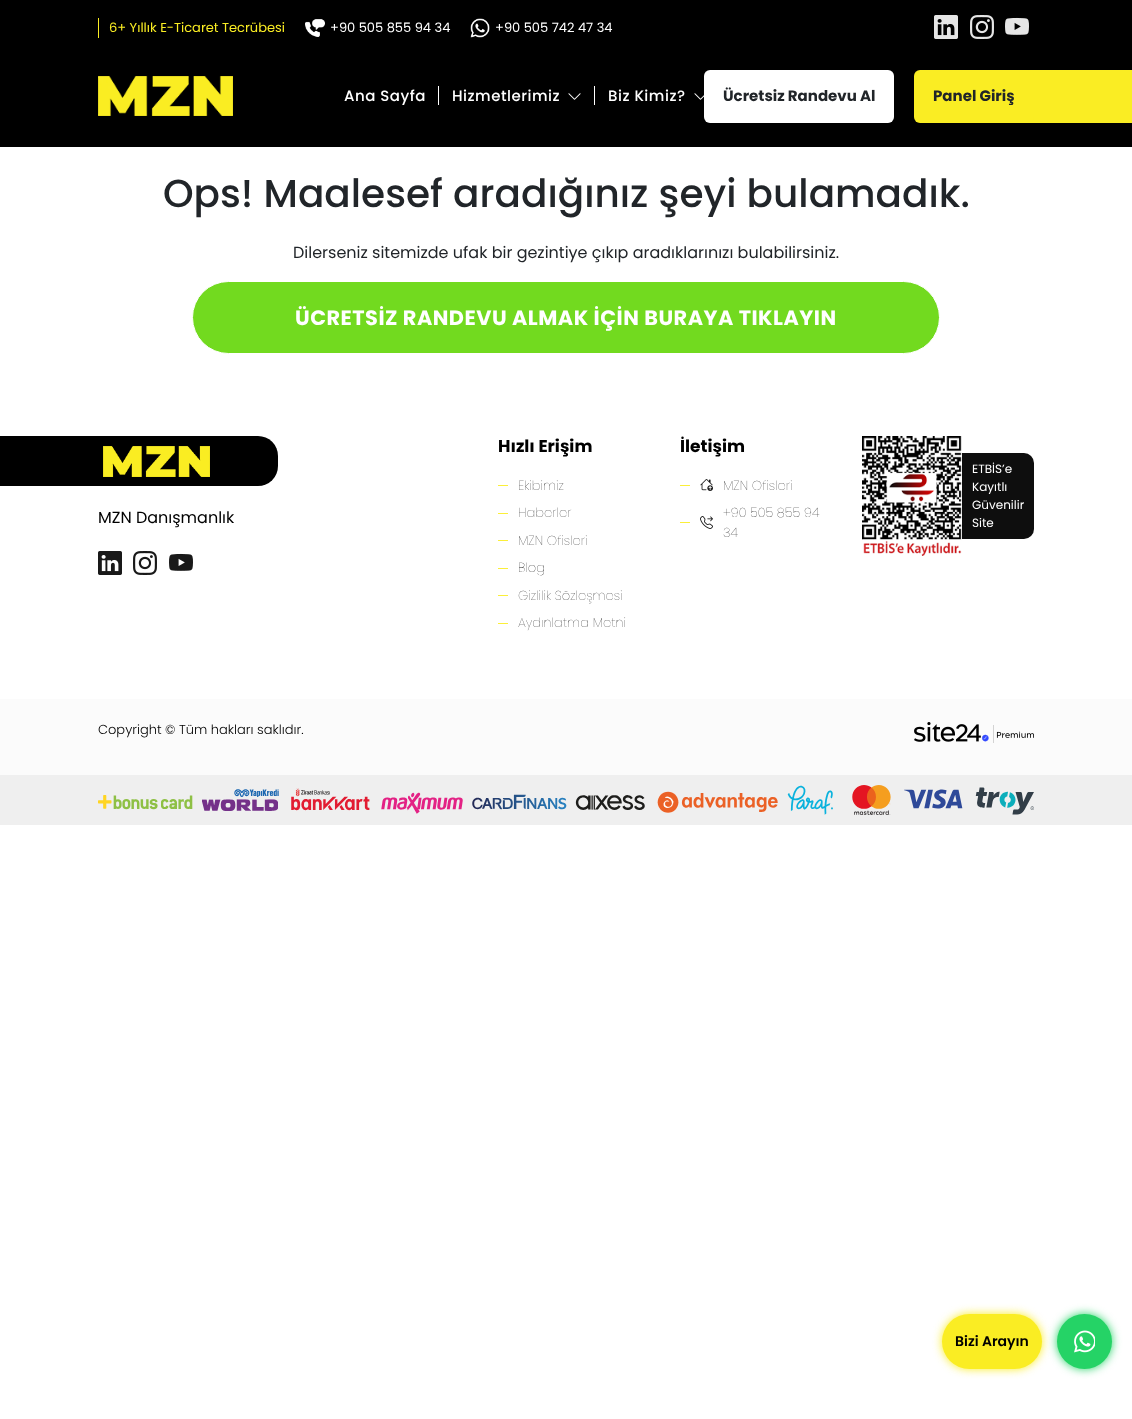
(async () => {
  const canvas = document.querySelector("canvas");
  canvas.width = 1132;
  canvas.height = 1419;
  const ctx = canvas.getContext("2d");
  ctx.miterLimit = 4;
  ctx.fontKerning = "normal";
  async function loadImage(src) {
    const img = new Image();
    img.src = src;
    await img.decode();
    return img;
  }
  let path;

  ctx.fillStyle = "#ffffff";
  ctx.fillRect(0, 0, 1132, 1419);
  ctx.fillStyle = "#000000";
  ctx.fillRect(0, 0, 1132, 147);
  ctx.fillStyle = "#faed23";
  ctx.fillRect(98, 18, 1, 20);
  ctx.drawImage(await loadImage("img/1.png"), 305, 19, 20, 18);
  ctx.drawImage(await loadImage("img/2.png"), 470, 18, 20, 20);
  ctx.drawImage(await loadImage("img/3.png"), 934, 15, 24, 24);
  ctx.drawImage(await loadImage("img/4.png"), 970, 15, 24, 24);
  ctx.drawImage(await loadImage("img/5.png"), 1005, 17, 24, 18);
  ctx.drawImage(await loadImage("img/6.png"), 98, 76, 135, 40);
  ctx.fillStyle = "#ffffff";
  ctx.fillRect(438, 86, 1, 19);
  ctx.drawImage(await loadImage("img/7.png"), 568, 93, 13, 7);
  ctx.fillRect(594, 86, 1, 19);
  ctx.drawImage(await loadImage("img/8.png"), 694, 93, 10, 7);
  ctx.beginPath();
  ctx.roundRect(704, 70, 190, 53, 6);
  ctx.fill();
  ctx.fillStyle = "#faed23";
  path = new Path2D("M935 70H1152V123H935C924 123 915 114 915 103V90C915 79 924 70 935 70Z");
  ctx.fill(path);
  ctx.beginPath();
  ctx.roundRect(914, 70, 120, 53, 6);
  ctx.fill();
  ctx.fillStyle = "#72da1f";
  ctx.beginPath();
  ctx.roundRect(192.5, 281.5, 747, 72, 36);
  ctx.fill();
  ctx.strokeStyle = "#ffffff";
  ctx.stroke();
  ctx.fillStyle = "#000000";
  ctx.beginPath();
  ctx.roundRect(98, 436, 180, 50, [0, 20, 20, 0]);
  ctx.fill();
  ctx.fillRect(0, 436, 98, 50);
  ctx.drawImage(await loadImage("img/9.png"), 103, 446, 107, 31);
  ctx.drawImage(await loadImage("img/10.png"), 98, 551, 24, 24);
  ctx.drawImage(await loadImage("img/11.png"), 133, 551, 24, 24);
  ctx.drawImage(await loadImage("img/12.png"), 169, 553, 24, 18);
  for (const [x, y, w, h, color] of [
    [498, 485, 10, 1, "#fbef39"],
    [498, 513, 10, 1, "#fbef39"],
    [498, 540, 10, 1, "#fbef39"],
    [498, 568, 10, 1, "#fbef39"],
    [498, 595, 10, 1, "#fbef39"],
    [498, 623, 10, 1, "#fbef39"],
    [680, 485, 10, 1, "#fbef39"],
  ]) {
    ctx.fillStyle = color;
    ctx.fillRect(x, y, w, h);
  }
  ctx.drawImage(await loadImage("img/13.png"), 700, 479, 13, 12);
  ctx.fillRect(680, 522, 10, 1);
  ctx.drawImage(await loadImage("img/14.png"), 700, 516, 13, 13);
  ctx.drawImage(await loadImage("img/15.png"), 862, 436, 100, 120);
  ctx.fillStyle = "#0e0e0e";
  ctx.beginPath();
  ctx.roundRect(962, 453, 72, 86, [0, 10, 10, 0]);
  ctx.fill();
  ctx.fillStyle = "#fbfbfb";
  ctx.fillRect(0, 699, 1132, 76);
  ctx.drawImage(await loadImage("img/16.png"), 914, 722, 120, 21);
  ctx.fillStyle = "#efefef";
  ctx.fillRect(0, 775, 1132, 50);
  ctx.drawImage(await loadImage("img/17.png"), 98, 785, 936, 30);
  ctx.fillStyle = "#25d366";
  ctx.filter = "blur(5px)";
  ctx.beginPath();
  ctx.roundRect(1057, 1314, 55, 55, 27.5);
  ctx.fill();
  ctx.filter = "none";
  ctx.beginPath();
  ctx.arc(1084.5, 1341.5, 27.5, 0, Math.PI * 2);
  ctx.fill();
  ctx.fillStyle = "#faed23";
  ctx.filter = "blur(5px)";
  ctx.beginPath();
  ctx.roundRect(942, 1314, 100, 55, 27.5);
  ctx.fill();
  ctx.filter = "none";
  ctx.beginPath();
  ctx.roundRect(942, 1314, 100, 55, 27.5);
  ctx.fill();
  ctx.drawImage(await loadImage("img/18.png"), 1074, 1330, 21, 23);
  ctx.font = "13px Poppins";
  ctx.fillText("6+ Yıllık E-Ticaret Tecrübesi", 109, 32);
  ctx.fillStyle = "#ffffff";
  ctx.fillText("+90 505 855 94 34", 330, 32);
  ctx.fillText("+90 505 742 47 34", 495, 32);
  ctx.letterSpacing = "0.5px";
  ctx.font = "500 15px Poppins";
  for (const [text, x, y] of [
    ["Ana Sayfa", 344, 101],
    ["Hizmetlerimiz", 452, 101],
    ["Biz Kimiz?", 608, 101],
  ]) {
    ctx.fillText(text, x, y);
  }
  ctx.letterSpacing = "0px";
  ctx.font = "bold 15px Poppins";
  ctx.fillStyle = "#212529";
  ctx.fillText("Ücretsiz Randevu Al", 723, 101);
  ctx.fillText("Panel Giriş", 933, 101);
  ctx.font = "500 39px Poppins";
  ctx.fillText("Ops! Maalesef aradığınız şeyi bulamadık.", 163, 207);
  ctx.font = "16px Poppins";
  ctx.fillText("Dilerseniz sitemizde ufak bir gezintiye çıkıp aradıklarınızı bulabilirsiniz.", 293, 258);
  ctx.letterSpacing = "0.5px";
  ctx.font = "bold 20.8px Poppins";
  ctx.fillStyle = "#ffffff";
  ctx.fillText("ÜCRETSİZ RANDEVU ALMAK İÇİN BURAYA TIKLAYIN", 295, 325);
  ctx.letterSpacing = "0px";
  ctx.font = "16px Poppins";
  ctx.fillStyle = "#000000";
  ctx.fillText("MZN Danışmanlık", 98, 523);
  ctx.font = "bold 17px Poppins";
  ctx.fillText("Hızlı Erişim", 498, 452);
  ctx.font = "200 13px Poppins";
  ctx.fillStyle = "#1a1a1a";
  for (const [text, x, y] of [
    ["Ekibimiz", 518, 490],
    ["Haberler", 518, 517],
    ["MZN Ofisleri", 518, 545],
    ["Blog", 518, 572],
    ["Gizlilik Sözleşmesi", 518, 600],
    ["Aydınlatma Metni", 518, 627],
  ]) {
    ctx.fillText(text, x, y);
  }
  ctx.font = "bold 17px Poppins";
  ctx.fillStyle = "#000000";
  ctx.fillText("İletişim", 680, 452);
  ctx.font = "200 13px Poppins";
  ctx.fillStyle = "#1a1a1a";
  for (const [text, x, y] of [
    ["MZN Ofisleri", 723, 490],
    ["+90 505 855 94", 723, 517],
    ["34", 723, 537],
  ]) {
    ctx.fillText(text, x, y);
  }
  ctx.font = "12px Poppins";
  ctx.fillStyle = "#ffffff";
  for (const [text, x, y] of [
    ["ETBİS’e", 972, 473],
    ["Kayıtlı", 972, 491],
    ["Güvenilir", 972, 509],
    ["Site", 972, 527],
  ]) {
    ctx.fillText(text, x, y);
  }
  ctx.font = "300 13px Poppins";
  ctx.fillStyle = "#000000";
  ctx.fillText("Copyright © Tüm hakları saklıdır.", 98, 734);
  ctx.font = "600 14px Poppins";
  ctx.fillText("Bizi Arayın", 955, 1346);
})();
